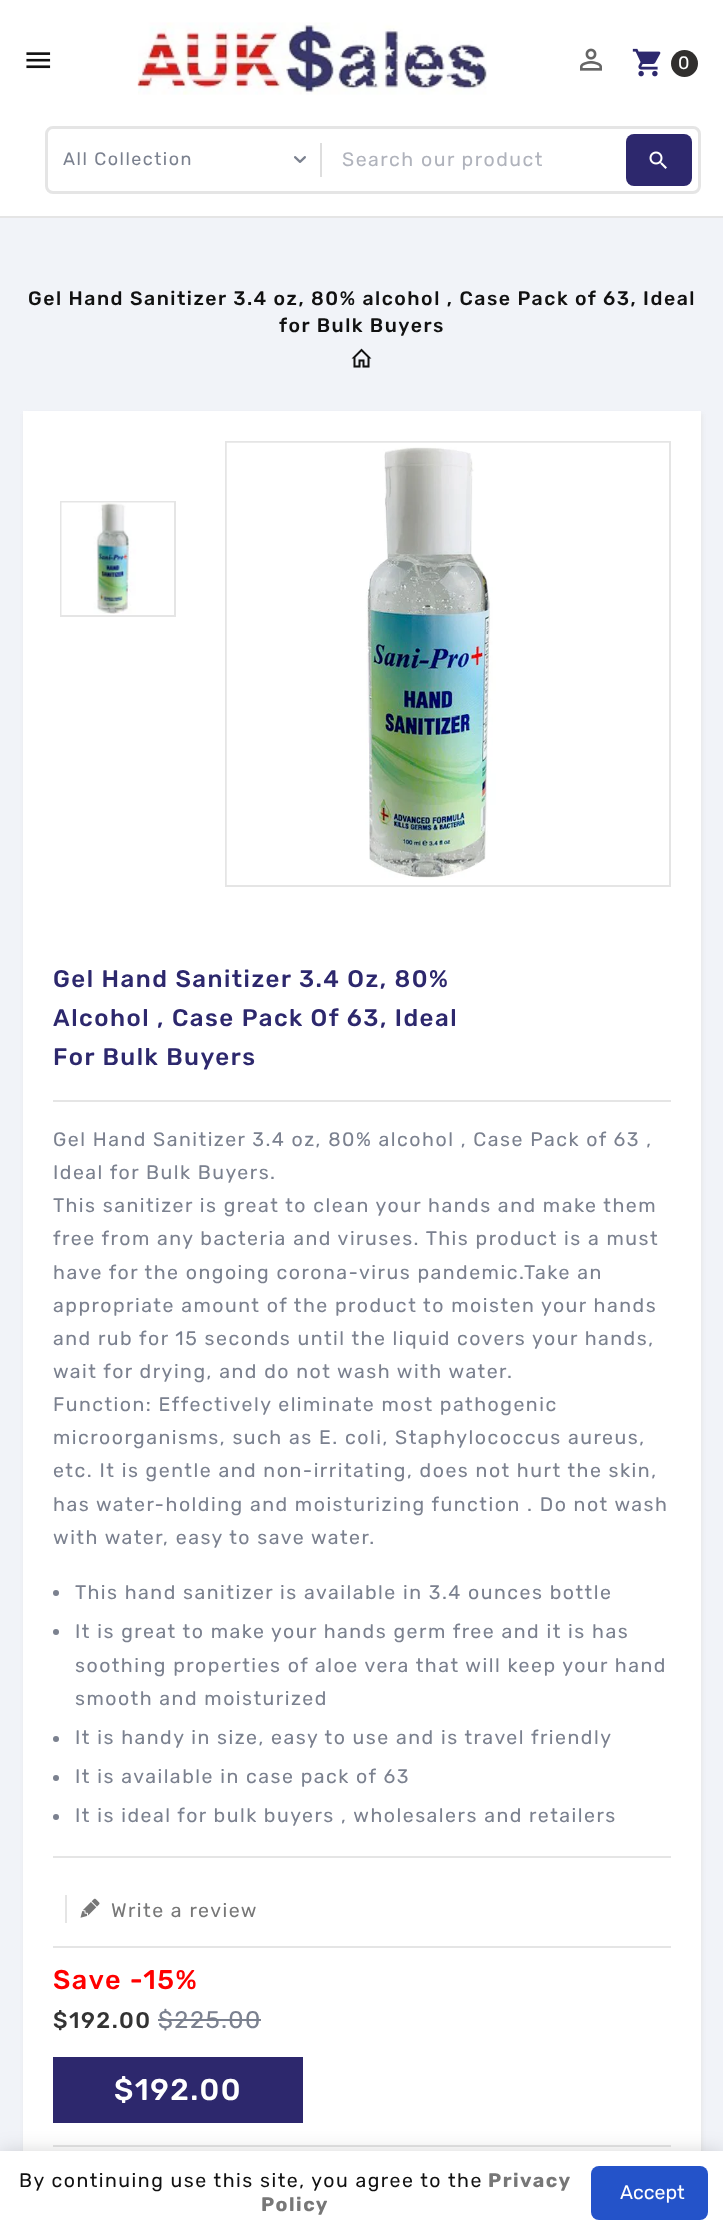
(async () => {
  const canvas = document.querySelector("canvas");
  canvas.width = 723;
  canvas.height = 2234;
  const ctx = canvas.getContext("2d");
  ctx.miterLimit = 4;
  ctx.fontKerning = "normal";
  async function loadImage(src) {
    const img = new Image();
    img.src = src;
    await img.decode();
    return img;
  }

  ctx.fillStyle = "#f1f3f8";
  ctx.fillRect(0, 0, 723, 2234);
  ctx.fillStyle = "#ffffff";
  ctx.fillRect(0, 0, 723, 216);
  ctx.drawImage(await loadImage("img/1.png"), 26, 52, 25, 17);
  ctx.drawImage(await loadImage("img/2.png"), 137, 22, 350, 73);
  ctx.drawImage(await loadImage("img/3.png"), 580, 48, 22, 23);
  ctx.drawImage(await loadImage("img/4.png"), 632, 48, 29, 29);
  ctx.fillStyle = "#312f2e";
  ctx.beginPath();
  ctx.arc(684.5, 63.5, 13.5, 0, Math.PI * 2);
  ctx.fill();
  ctx.beginPath();
  ctx.roundRect(46.5, 127.5, 653, 65, 6.5);
  ctx.strokeStyle = "#e5e5e5";
  ctx.lineWidth = 3;
  ctx.stroke();
  ctx.drawImage(await loadImage("img/5.png"), 294, 156, 12, 7);
  ctx.fillStyle = "#dedede";
  ctx.fillRect(320, 143, 2, 34);
  ctx.fillStyle = "#2d286d";
  ctx.beginPath();
  ctx.roundRect(626, 134, 66, 52, 8);
  ctx.fill();
  ctx.drawImage(await loadImage("img/6.png"), 649, 151, 18, 18);
  ctx.fillStyle = "#e5e5e5";
  ctx.fillRect(0, 216, 723, 2);
  ctx.drawImage(await loadImage("img/7.png"), 351, 348, 21, 20);
  ctx.filter = "blur(2px)";
  ctx.beginPath();
  ctx.rect(24, 414, 678, 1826);
  ctx.fill();
  ctx.filter = "none";
  ctx.fillStyle = "#ffffff";
  ctx.fillRect(23, 411, 678, 1740);
  ctx.lineWidth = 2;
  ctx.strokeRect(61, 502, 114, 114);
  ctx.drawImage(await loadImage("img/8.png"), 61, 502, 113, 113);
  ctx.strokeRect(226, 442, 444, 444);
  ctx.drawImage(await loadImage("img/9.png"), 226, 442, 443, 443);
  ctx.fillStyle = "#e5e5e5";
  ctx.fillRect(53, 1100, 618, 2);
  ctx.fillStyle = "#7b818f";
  ctx.beginPath();
  ctx.arc(56, 1593, 3, 0, Math.PI * 2);
  ctx.fill();
  ctx.beginPath();
  ctx.arc(56, 1632, 3, 0, Math.PI * 2);
  ctx.fill();
  ctx.beginPath();
  ctx.arc(56, 1739, 3, 0, Math.PI * 2);
  ctx.fill();
  ctx.beginPath();
  ctx.arc(56, 1778, 3, 0, Math.PI * 2);
  ctx.fill();
  ctx.beginPath();
  ctx.arc(56, 1817, 3, 0, Math.PI * 2);
  ctx.fill();
  ctx.fillStyle = "#e5e5e5";
  ctx.fillRect(53, 1856, 618, 2);
  ctx.fillRect(65, 1895, 2, 28);
  ctx.drawImage(await loadImage("img/10.png"), 80, 1898, 20, 20);
  for (const [x, y, w, h, color] of [
    [53, 1946, 618, 2, "#e5e5e5"],
    [158, 2019, 103, 2, "#7b818f"],
    [53, 2057, 250, 66, "#2d286d"],
    [53, 2145, 618, 2, "#e5e5e5"],
  ]) {
    ctx.fillStyle = color;
    ctx.fillRect(x, y, w, h);
  }
  ctx.fillStyle = "rgba(0, 0, 0, 0.2)";
  ctx.filter = "blur(11px)";
  ctx.beginPath();
  ctx.rect(0, 2154, 723, 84);
  ctx.fill();
  ctx.filter = "none";
  ctx.fillStyle = "#ffffff";
  ctx.fillRect(0, 2151, 723, 83);
  ctx.fillStyle = "#2453c9";
  ctx.beginPath();
  ctx.roundRect(591, 2166, 117, 54, 8);
  ctx.fill();
  ctx.letterSpacing = "1.5px";
  ctx.font = "18px Rubik";
  ctx.fillStyle = "#ffffff";
  ctx.fillText("0", 678, 69);
  ctx.fillStyle = "#7b818f";
  ctx.fillText("All Collection", 63, 165);
  ctx.font = "19.5px Rubik";
  ctx.fillStyle = "#b0b3bc";
  ctx.fillText("Search our product", 342, 166);
  ctx.font = "500 19.5px Rubik";
  ctx.fillStyle = "#111111";
  ctx.fillText("Gel Hand Sanitizer 3.4 oz, 80% alcohol , Case Pack of 63, Ideal", 28, 305);
  ctx.fillText("for Bulk Buyers", 279, 332);
  ctx.font = "500 24px Rubik";
  ctx.fillStyle = "#2d286d";
  for (const [text, x, y] of [
    ["Gel Hand Sanitizer 3.4 Oz, 80%", 53, 987],
    ["Alcohol , Case Pack Of 63, Ideal", 53, 1026],
    ["For Bulk Buyers", 53, 1065],
  ]) {
    ctx.fillText(text, x, y);
  }
  ctx.font = "19.5px Rubik";
  ctx.fillStyle = "#7b818f";
  for (const [text, x, y] of [
    ["Gel Hand Sanitizer 3.4 oz, 80% alcohol , Case Pack of 63 ,", 53, 1146],
    ["Ideal for Bulk Buyers.", 53, 1179],
    ["This sanitizer is great to clean your hands and make them", 53, 1212],
    ["free from any bacteria and viruses. This product is a must", 53, 1245],
    ["have for the ongoing corona-virus pandemic.Take an", 53, 1279],
    ["appropriate amount of the product to moisten your hands", 53, 1312],
    ["and rub for 15 seconds until the liquid covers your hands,", 53, 1345],
    ["wait for drying, and do not wash with water.", 53, 1378],
    ["Function: Effectively eliminate most pathogenic", 53, 1411],
    ["microorganisms, such as E. coli, Staphylococcus aureus,", 53, 1444],
    ["etc. It is gentle and non-irritating, does not hurt the skin,", 53, 1477],
    ["has water-holding and moisturizing function . Do not wash", 53, 1511],
    ["with water, easy to save water.", 53, 1544],
    ["This hand sanitizer is available in 3.4 ounces bottle", 75, 1599],
    ["It is great to make your hands germ free and it is has", 75, 1638],
    ["soothing properties of aloe vera that will keep your hand", 75, 1672],
    ["smooth and moisturized", 75, 1705],
    ["It is handy in size, easy to use and is travel friendly", 75, 1744],
    ["It is available in case pack of 63", 75, 1783],
    ["It is ideal for bulk buyers , wholesalers and retailers", 75, 1822],
  ]) {
    ctx.fillText(text, x, y);
  }
  ctx.fillStyle = "#777777";
  ctx.fillText("Write a review", 111, 1917);
  ctx.font = "500 27px Rubik";
  ctx.fillStyle = "#ff0000";
  ctx.fillText("Save -15%", 53, 1989);
  ctx.font = "500 22.5px Rubik";
  ctx.fillStyle = "#333333";
  ctx.fillText("$192.00", 53, 2028);
  ctx.font = "24px Rubik";
  ctx.fillStyle = "#7b818f";
  ctx.fillText("$225.00", 158, 2028);
  ctx.font = "500 30px Rubik";
  ctx.fillStyle = "#ffffff";
  ctx.fillText("$192.00", 114, 2100);
  ctx.font = "19.5px Rubik";
  ctx.fillStyle = "#111111";
  ctx.fillText("By continuing use this site, you agree to the", 19, 2187);
  ctx.font = "bold 19.5px Rubik";
  ctx.fillStyle = "#777777";
  ctx.fillText("Privacy", 488, 2187);
  ctx.fillText("Policy", 261, 2211);
  ctx.letterSpacing = "0px";
  ctx.font = "19.5px Rubik";
  ctx.fillStyle = "#ffffff";
  ctx.fillText("Accept", 620, 2199);
})();
